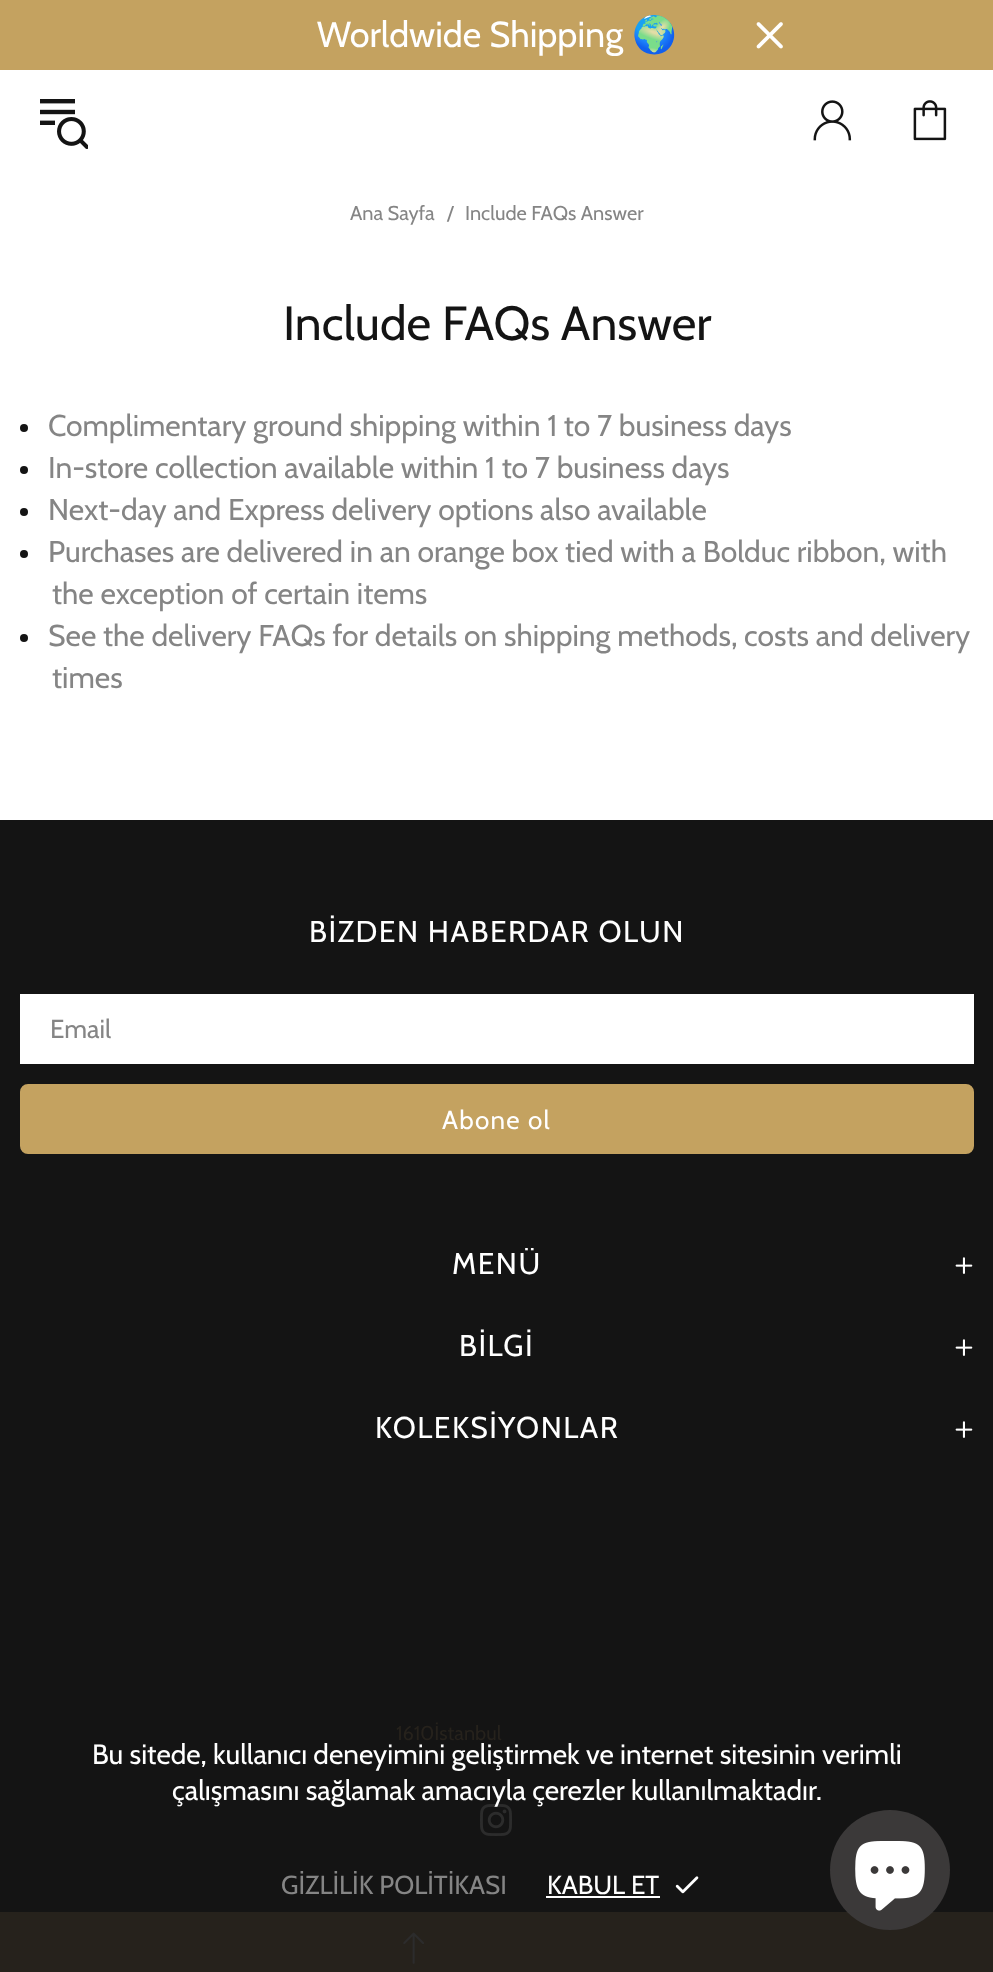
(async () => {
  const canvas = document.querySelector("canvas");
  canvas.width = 993;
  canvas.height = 1972;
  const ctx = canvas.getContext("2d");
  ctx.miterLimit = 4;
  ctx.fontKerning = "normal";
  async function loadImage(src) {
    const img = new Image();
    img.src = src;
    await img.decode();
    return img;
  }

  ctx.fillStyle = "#ffffff";
  ctx.fillRect(0, 0, 993, 1972);
  ctx.fillStyle = "#c4a260";
  ctx.fillRect(0, 0, 993, 70);
  ctx.drawImage(await loadImage("img/1.png"), 756, 22, 27, 27);
  ctx.drawImage(await loadImage("img/2.png"), 40, 99, 48, 50);
  ctx.drawImage(await loadImage("img/3.png"), 813, 100, 39, 41);
  ctx.drawImage(await loadImage("img/4.png"), 913, 100, 34, 41);
  ctx.fillStyle = "#141414";
  ctx.beginPath();
  ctx.arc(24, 428, 4, 0, Math.PI * 2);
  ctx.fill();
  ctx.beginPath();
  ctx.arc(24, 470, 4, 0, Math.PI * 2);
  ctx.fill();
  ctx.beginPath();
  ctx.arc(24, 512, 4, 0, Math.PI * 2);
  ctx.fill();
  ctx.beginPath();
  ctx.arc(24, 554, 4, 0, Math.PI * 2);
  ctx.fill();
  ctx.beginPath();
  ctx.arc(24, 638, 4, 0, Math.PI * 2);
  ctx.fill();
  ctx.fillRect(0, 820, 993, 1092);
  ctx.fillStyle = "#ffffff";
  ctx.fillRect(20, 994, 954, 70);
  ctx.fillStyle = "#c4a260";
  ctx.beginPath();
  ctx.roundRect(21, 1085, 952, 68, 7);
  ctx.fill();
  ctx.strokeStyle = "#c4a260";
  ctx.lineWidth = 2;
  ctx.stroke();
  ctx.drawImage(await loadImage("img/5.png"), 955, 1257, 18, 17);
  ctx.drawImage(await loadImage("img/5.png"), 955, 1339, 18, 17);
  ctx.drawImage(await loadImage("img/5.png"), 955, 1421, 18, 17);
  ctx.drawImage(await loadImage("img/6.png"), 480, 1804, 32, 32);
  ctx.fillStyle = "#26221c";
  ctx.fillRect(0, 1912, 993, 60);
  ctx.drawImage(await loadImage("img/7.png"), 403, 1932, 21, 32);
  ctx.fillStyle = "#ffffff";
  ctx.fillRect(546, 1896, 114, 2);
  ctx.drawImage(await loadImage("img/8.png"), 675, 1876, 24, 18);
  ctx.fillStyle = "#3b3939";
  ctx.beginPath();
  ctx.arc(890, 1870, 60, 0, Math.PI * 2);
  ctx.fill();
  ctx.drawImage(await loadImage("img/9.png"), 855, 1841, 70, 70);
  ctx.font = "36px Cabin";
  ctx.fillStyle = "#ffffff";
  ctx.fillText("Worldwide Shipping", 317, 47);
  ctx.font = "36px Noto Color Emoji";
  ctx.fillText("🌍", 632, 47);
  ctx.font = "20px Cabin";
  ctx.fillStyle = "#858585";
  for (const [text, x, y] of [
    ["Ana Sayfa", 350, 220],
    ["/", 447, 220],
    ["Include FAQs Answer", 465, 220],
  ]) {
    ctx.fillText(text, x, y);
  }
  ctx.font = "48px Cabin";
  ctx.fillStyle = "#141414";
  ctx.fillText("Include FAQs Answer", 283, 340);
  ctx.font = "30px Cabin";
  ctx.fillStyle = "#858585";
  for (const [text, x, y] of [
    ["Complimentary ground shipping within 1 to 7 business days", 48, 436],
    ["In-store collection available within 1 to 7 business days", 48, 478],
    ["Next-day and Express delivery options also available", 48, 520],
    ["Purchases are delivered in an orange box tied with a Bolduc ribbon, with", 48, 562],
    ["the exception of certain items", 52, 604],
    ["See the delivery FAQs for details on shipping methods, costs and delivery", 48, 646],
    ["times", 52, 688],
  ]) {
    ctx.fillText(text, x, y);
  }
  ctx.letterSpacing = "1.5px";
  ctx.fillStyle = "#ffffff";
  ctx.fillText("BİZDEN HABERDAR OLUN", 309, 942);
  ctx.letterSpacing = "0px";
  ctx.font = "26px Cabin";
  ctx.fillStyle = "#858585";
  ctx.fillText("Email", 50, 1038);
  ctx.letterSpacing = "1.25px";
  ctx.fillStyle = "#ffffff";
  ctx.fillText("Abone ol", 442, 1129);
  ctx.letterSpacing = "1.5px";
  ctx.font = "30px Cabin";
  for (const [text, x, y] of [
    ["MENÜ", 452, 1274],
    ["BİLGİ", 459, 1356],
    ["KOLEKSİYONLAR", 375, 1438],
  ]) {
    ctx.fillText(text, x, y);
  }
  ctx.letterSpacing = "0px";
  ctx.font = "20px Cabin";
  ctx.fillStyle = "#26221c";
  ctx.fillText("1610İstanbul", 396, 1740);
  ctx.font = "28px Cabin";
  ctx.fillStyle = "#ffffff";
  ctx.fillText("Bu sitede, kullanıcı deneyimini geliştirmek ve internet sitesinin verimli", 92, 1764);
  ctx.fillText("çalışmasını sağlamak amacıyla çerezler kullanılmaktadır.", 172, 1800);
  ctx.font = "26px Cabin";
  ctx.fillStyle = "#858585";
  ctx.fillText("GİZLİLİK POLİTİKASI", 281, 1894);
  ctx.fillStyle = "#ffffff";
  ctx.fillText("KABUL ET", 547, 1894);
})();
